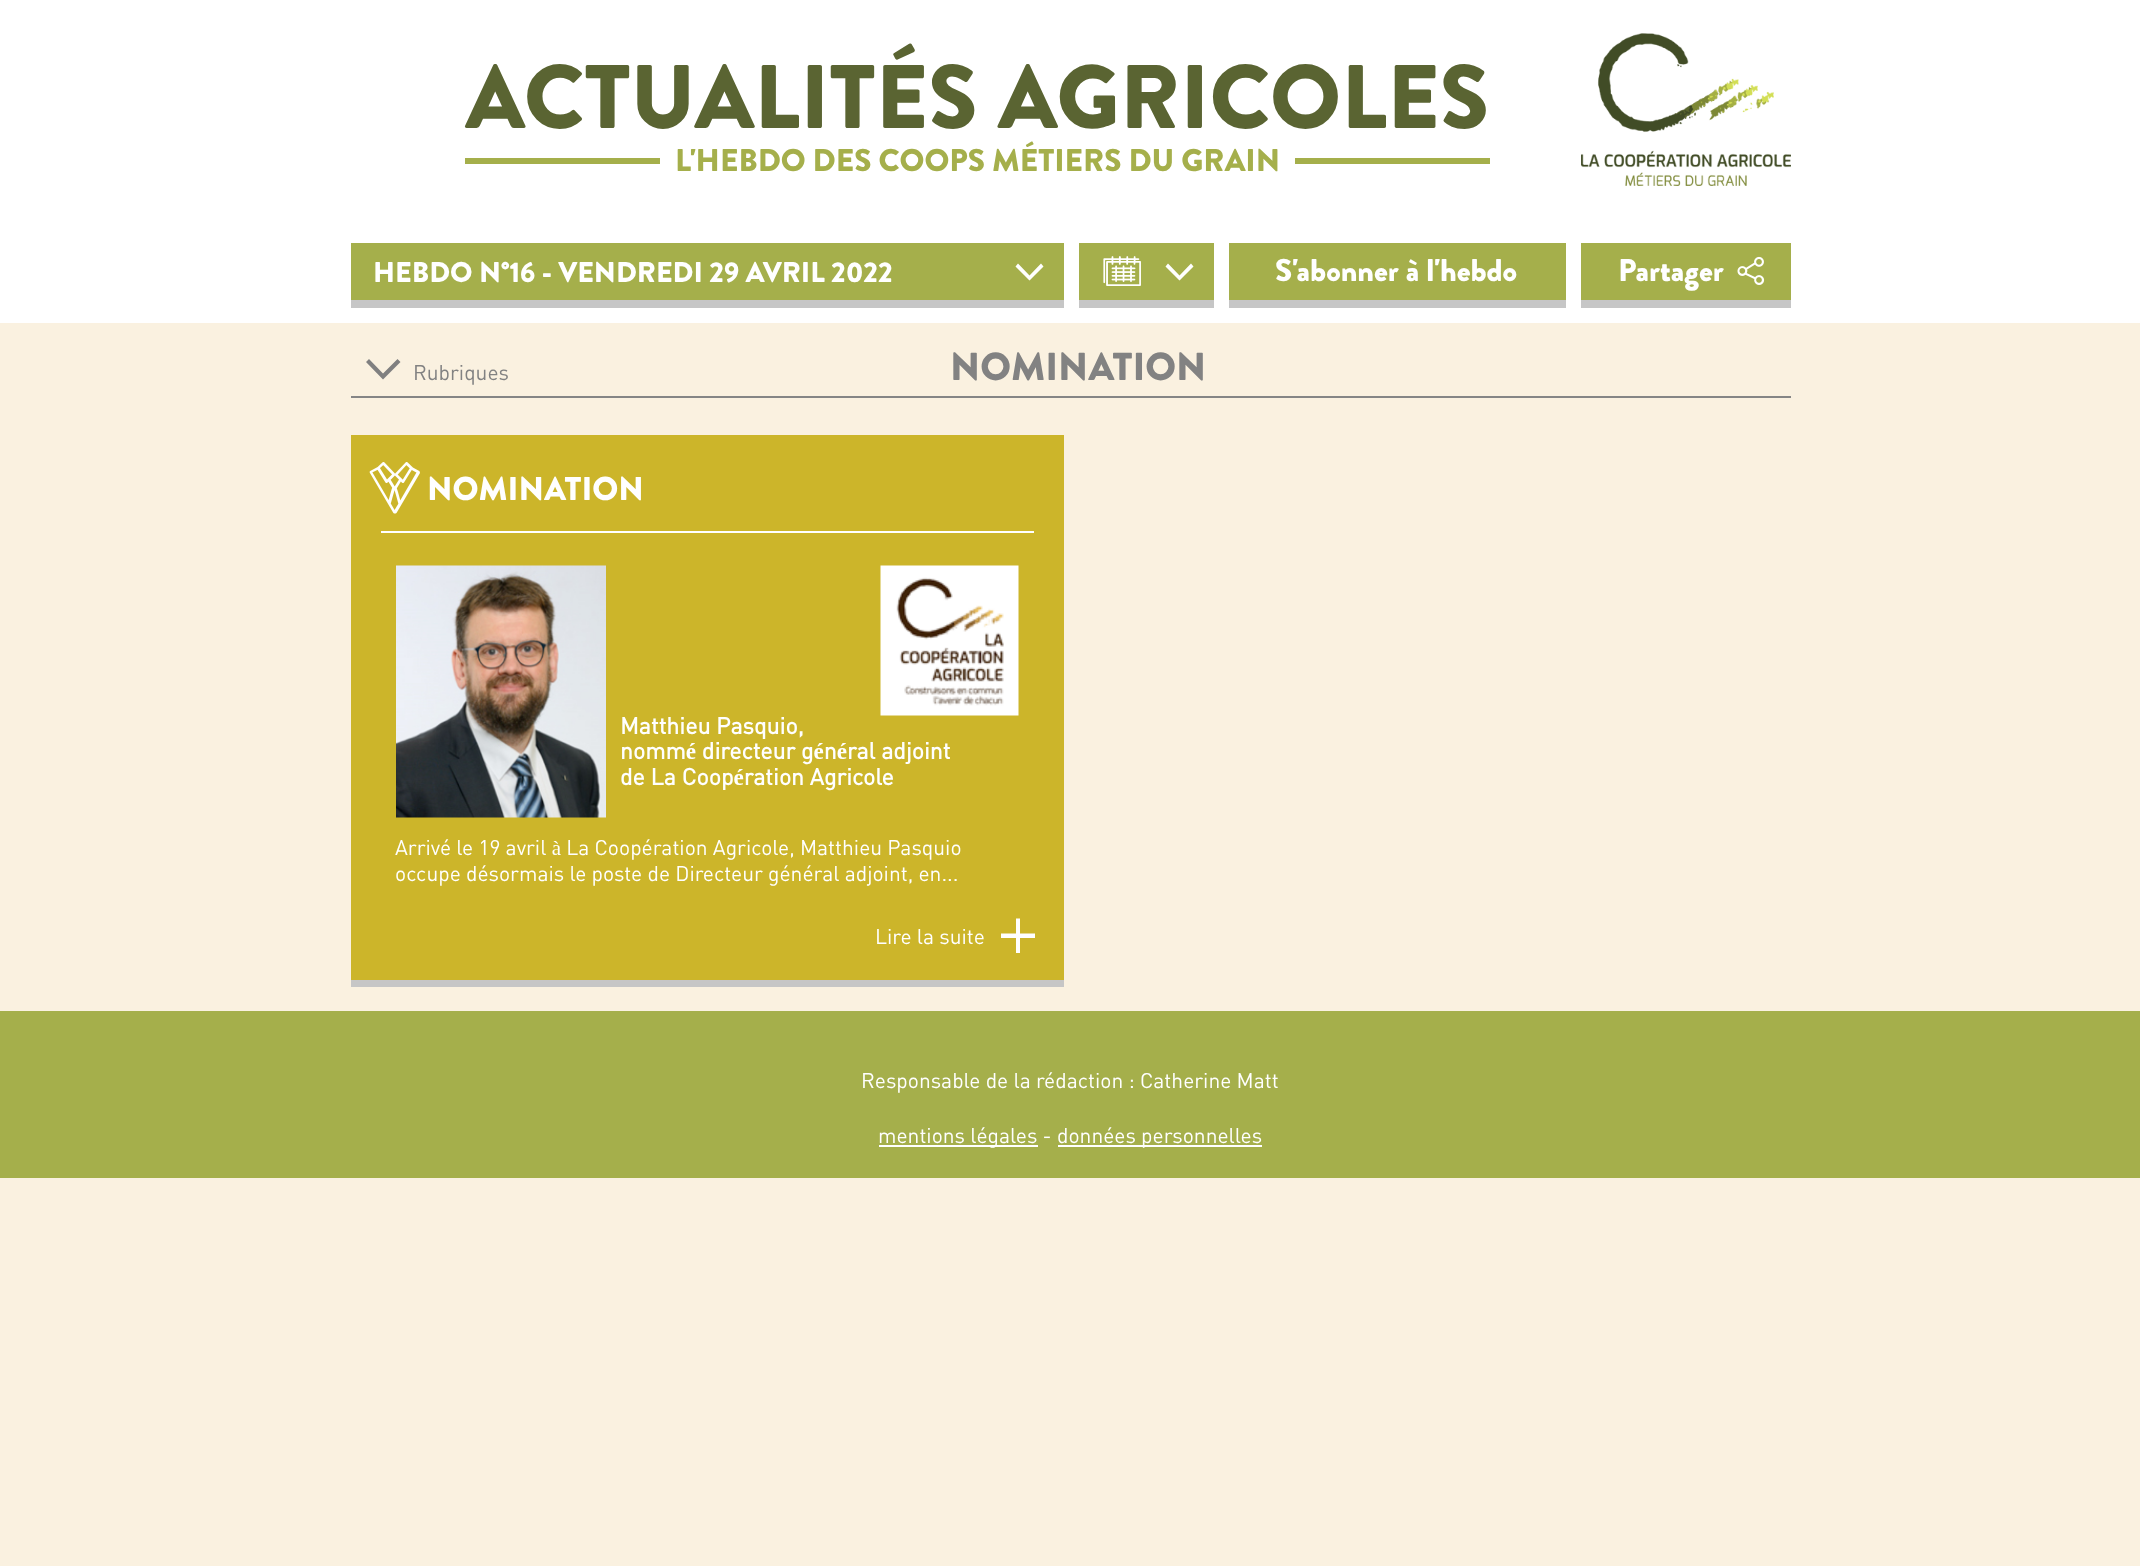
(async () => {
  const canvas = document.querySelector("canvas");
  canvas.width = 2140;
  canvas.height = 1566;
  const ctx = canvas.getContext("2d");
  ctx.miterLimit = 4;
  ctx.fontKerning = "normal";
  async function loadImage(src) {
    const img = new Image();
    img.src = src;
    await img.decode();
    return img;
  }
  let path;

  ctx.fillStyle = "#faf1e0";
  ctx.fillRect(0, 0, 2140, 1566);
  for (const [x, y, w, h, color] of [
    [0, 0, 2140, 323, "#ffffff"],
    [465, 158, 1025, 6, "#a5af4b"],
    [660, 158, 635, 6, "#ffffff"],
  ]) {
    ctx.fillStyle = color;
    ctx.fillRect(x, y, w, h);
  }
  ctx.drawImage(await loadImage("img/1.png"), 1581, 33, 210, 153);
  ctx.fillStyle = "#c6c6c6";
  path = new Path2D("M351 300V308H1064V251V300Z");
  ctx.fill(path);
  ctx.fillStyle = "#a5af4b";
  ctx.fillRect(351, 243, 713, 57);
  ctx.fillStyle = "#ffffff";
  path = new Path2D("M1041 263.5L1029.5 275.5L1018 263.5L1015.5 266.5L1029.5 280.5L1043.5 266.5Z");
  ctx.fill(path);
  ctx.fillStyle = "#c6c6c6";
  path = new Path2D("M1079 300V308H1214V251V300Z");
  ctx.fill(path);
  ctx.fillStyle = "#a5af4b";
  ctx.fillRect(1079, 243, 135, 57);
  ctx.drawImage(await loadImage("img/2.png"), 1103, 256, 38, 30);
  ctx.fillStyle = "#ffffff";
  path = new Path2D("M1191 263.5L1179.5 275.5L1168 263.5L1165.5 266.5L1179.5 280.5L1193.5 266.5Z");
  ctx.fill(path);
  for (const [x, y, w, h, color] of [
    [1229, 300, 337, 8, "#c6c6c6"],
    [1229, 243, 337, 57, "#a5af4b"],
    [1581, 300, 210, 8, "#c6c6c6"],
    [1581, 243, 210, 57, "#a5af4b"],
  ]) {
    ctx.fillStyle = color;
    ctx.fillRect(x, y, w, h);
  }
  ctx.drawImage(await loadImage("img/3.png"), 1737, 256, 28, 29);
  ctx.fillStyle = "#858585";
  ctx.fillRect(351, 396, 1440, 2);
  ctx.fillStyle = "#808080";
  path = new Path2D("M397.5 359L383 373.5L369 359L366 362L383 379.5L400.5 362Z");
  ctx.fill(path);
  ctx.fillStyle = "#c6c6c6";
  path = new Path2D("M351 980V987H1064V443V980Z");
  ctx.fill(path);
  ctx.fillStyle = "#ccb52a";
  ctx.fillRect(351, 435, 713, 545);
  ctx.drawImage(await loadImage("img/4.png"), 369, 462, 51, 52);
  ctx.fillStyle = "#ffffff";
  ctx.fillRect(381, 531, 653, 2);
  ctx.drawImage(await loadImage("img/5.png"), 396, 565, 210, 253);
  ctx.drawImage(await loadImage("img/6.png"), 880, 565, 139, 151);
  path = new Path2D("M1035 933.5H1020V918.5H1016V933.5H1001V938H1016V953H1020V938H1035Z");
  ctx.fill(path);
  for (const [x, y, w, h, color] of [
    [0, 1011, 2140, 167, "#a5af4b"],
    [879, 1145, 159, 2, "#ffffff"],
    [1058, 1145, 204, 2, "#ffffff"],
  ]) {
    ctx.fillStyle = color;
    ctx.fillRect(x, y, w, h);
  }
  ctx.font = "900 90px Brandon Grotesque";
  ctx.fillStyle = "#5a6432";
  ctx.fillText("ACTUALITÉS AGRICOLES", 465, 128);
  ctx.font = "900 31.5px Brandon Grotesque";
  ctx.fillStyle = "#a5af4b";
  ctx.fillText("L'HEBDO DES COOPS MÉTIERS DU GRAIN", 675, 171);
  ctx.font = "900 28.5px Brandon Grotesque";
  ctx.fillStyle = "#ffffff";
  ctx.fillText("HEBDO N°16 - VENDREDI 29 AVRIL 2022", 373, 282);
  ctx.font = "900 31.5px Brandon Grotesque";
  ctx.fillText("S'abonner à l'hebdo", 1275, 281);
  ctx.fillText("Partager", 1618, 281);
  ctx.font = "21px DIN";
  ctx.fillStyle = "#828282";
  ctx.fillText("Rubriques", 413, 380);
  ctx.font = "900 39px Brandon Grotesque";
  ctx.fillText("NOMINATION", 950, 380);
  ctx.font = "900 33px Brandon Grotesque";
  ctx.fillStyle = "#ffffff";
  ctx.fillText("NOMINATION", 427, 500);
  ctx.font = "bold 23.1px DIN";
  for (const [text, x, y] of [
    ["Matthieu Pasquio,", 620, 734],
    ["nommé directeur général adjoint", 620, 759],
    ["de La Coopération Agricole", 620, 785],
  ]) {
    ctx.fillText(text, x, y);
  }
  ctx.font = "21px DIN";
  for (const [text, x, y] of [
    ["Arrivé le 19 avril à La Coopération Agricole, Matthieu Pasquio", 395, 855],
    ["occupe désormais le poste de Directeur général adjoint, en...", 395, 881],
    ["Lire la suite", 875, 944],
    ["Responsable de la rédaction : Catherine Matt", 861, 1088],
    ["mentions légales -", 878, 1143],
    ["données personnelles", 1057, 1143],
  ]) {
    ctx.fillText(text, x, y);
  }
})();
